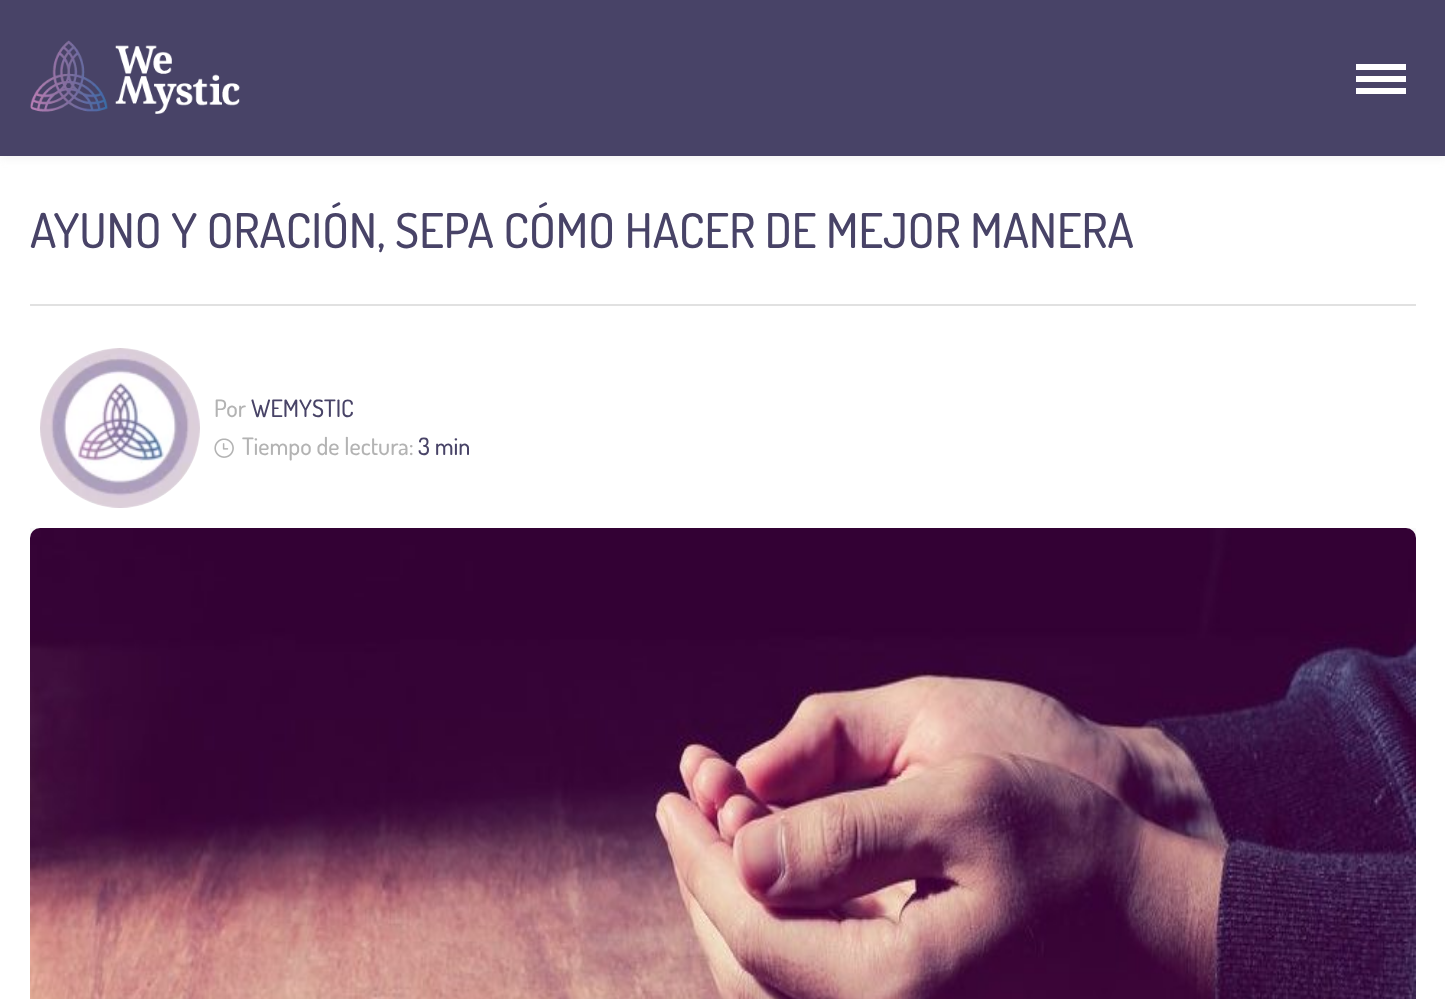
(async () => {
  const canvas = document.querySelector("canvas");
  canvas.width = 1445;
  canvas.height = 999;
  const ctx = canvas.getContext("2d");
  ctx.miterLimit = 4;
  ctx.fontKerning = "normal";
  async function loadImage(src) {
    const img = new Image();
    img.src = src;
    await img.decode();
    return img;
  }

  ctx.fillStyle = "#ffffff";
  ctx.fillRect(0, 0, 1445, 999);
  ctx.fillStyle = "rgba(190, 190, 190, 0.2)";
  ctx.filter = "blur(5px)";
  ctx.beginPath();
  ctx.rect(0, 2, 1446, 156);
  ctx.fill();
  ctx.filter = "none";
  ctx.fillStyle = "#484367";
  ctx.fillRect(0, 0, 1445, 156);
  ctx.drawImage(await loadImage("img/1.png"), 30, 40, 210, 74);
  for (const [x, y, w, h, color] of [
    [1356, 64, 50, 6, "#ffffff"],
    [1356, 76, 50, 6, "#ffffff"],
    [1356, 88, 50, 6, "#ffffff"],
    [30, 304, 1386, 2, "#e1e1e1"],
  ]) {
    ctx.fillStyle = color;
    ctx.fillRect(x, y, w, h);
  }
  ctx.drawImage(await loadImage("img/2.png"), 40, 348, 160, 160);
  ctx.drawImage(await loadImage("img/3.png"), 214, 438, 20, 20);
  ctx.fillStyle = "#f9f9f9";
  ctx.fillRect(30, 528, 1386, 10);
  ctx.drawImage(await loadImage("img/4.png"), 30, 528, 1386, 471);
  ctx.font = "500 48px Dosis";
  ctx.fillStyle = "#484367";
  ctx.fillText("AYUNO Y ORACIÓN, SEPA CÓMO HACER DE MEJOR MANERA", 30, 248);
  ctx.font = "500 24px Dosis";
  ctx.fillStyle = "#b3b3b3";
  ctx.fillText("Por", 214, 417);
  ctx.fillStyle = "#484367";
  ctx.fillText("WEMYSTIC", 251, 417);
  ctx.fillStyle = "#b3b3b3";
  ctx.fillText("Tiempo de lectura:", 242, 455);
  ctx.fillStyle = "#484367";
  ctx.fillText("3 min", 418, 455);
})();
